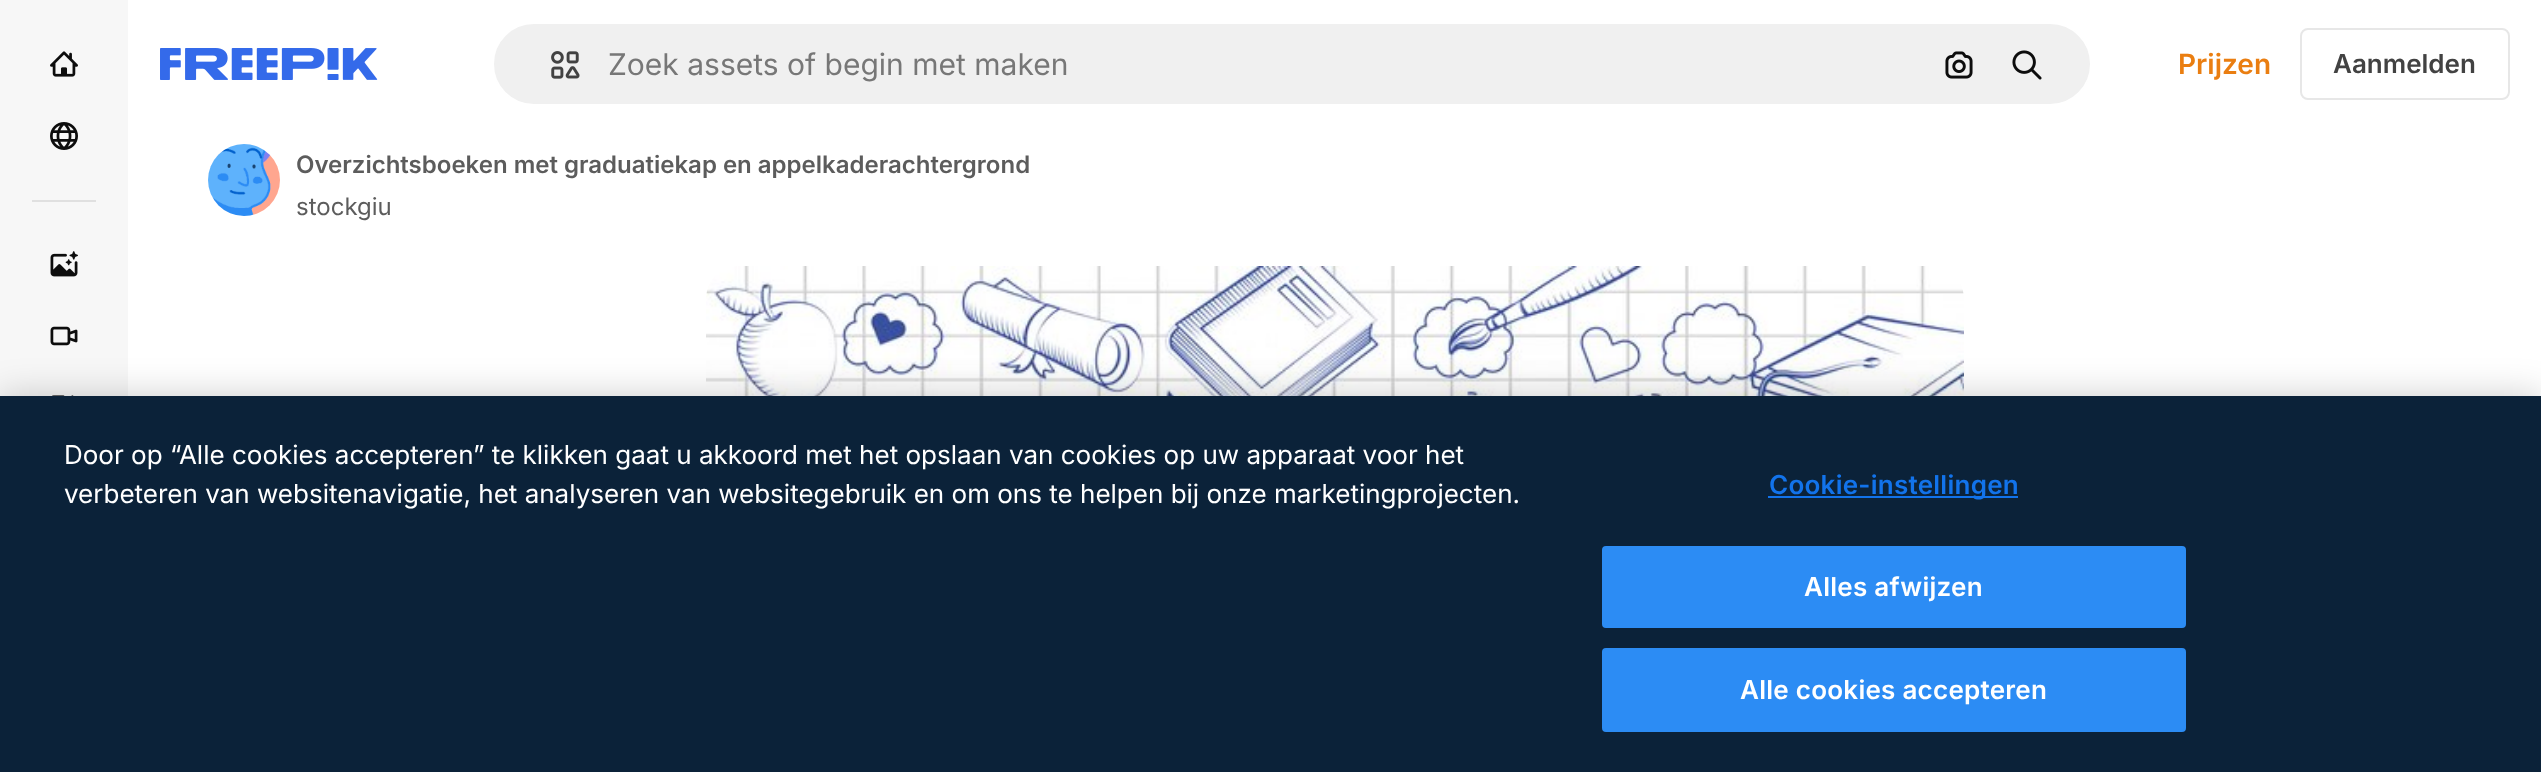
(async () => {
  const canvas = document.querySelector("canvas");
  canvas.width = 2541;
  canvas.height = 772;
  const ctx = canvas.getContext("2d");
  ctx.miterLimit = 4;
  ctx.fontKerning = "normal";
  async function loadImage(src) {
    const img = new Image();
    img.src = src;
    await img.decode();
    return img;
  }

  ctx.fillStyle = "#ffffff";
  ctx.fillRect(0, 0, 2541, 772);
  ctx.fillStyle = "#f7f7f7";
  ctx.fillRect(0, 0, 128, 396);
  ctx.drawImage(await loadImage("img/1.png"), 50, 51, 28, 26);
  ctx.drawImage(await loadImage("img/2.png"), 50, 122, 28, 28);
  ctx.fillStyle = "#e0e0e0";
  ctx.fillRect(32, 200, 64, 2);
  ctx.drawImage(await loadImage("img/3.png"), 50, 251, 28, 26);
  ctx.drawImage(await loadImage("img/4.png"), 50, 326, 28, 20);
  ctx.drawImage(await loadImage("img/5.png"), 52, 395, 22, 1);
  ctx.drawImage(await loadImage("img/6.png"), 160, 48, 218, 32);
  ctx.fillStyle = "#f0f0f0";
  ctx.beginPath();
  ctx.roundRect(493, 23, 1598, 82, 41);
  ctx.fill();
  ctx.strokeStyle = "#ffffff";
  ctx.lineWidth = 2;
  ctx.stroke();
  ctx.drawImage(await loadImage("img/7.png"), 551, 51, 29, 28);
  ctx.drawImage(await loadImage("img/8.png"), 1945, 51, 28, 28);
  ctx.drawImage(await loadImage("img/9.png"), 2012, 50, 30, 30);
  ctx.beginPath();
  ctx.roundRect(2301, 29, 208, 70, 7);
  ctx.strokeStyle = "#e7e7e7";
  ctx.stroke();
  ctx.drawImage(await loadImage("img/10.png"), 208, 144, 72, 72);
  ctx.drawImage(await loadImage("img/11.png"), 706, 266, 1258, 130);
  ctx.fillStyle = "rgba(0, 0, 0, 0.2)";
  ctx.filter = "blur(18px)";
  ctx.beginPath();
  ctx.rect(0, 396, 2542, 376);
  ctx.fill();
  ctx.filter = "none";
  ctx.fillStyle = "#0b2239";
  ctx.fillRect(0, 396, 2541, 376);
  ctx.fillStyle = "#1273eb";
  ctx.fillRect(1768, 496, 250, 2);
  ctx.fillStyle = "#2c8cf4";
  ctx.beginPath();
  ctx.roundRect(1603, 547, 582, 80, 3);
  ctx.fill();
  ctx.strokeStyle = "#2c8cf4";
  ctx.stroke();
  ctx.beginPath();
  ctx.roundRect(1603, 649, 582, 82, 3);
  ctx.fill();
  ctx.stroke();
  ctx.font = "30px Inter";
  ctx.fillStyle = "#777777";
  ctx.fillText("Zoek assets of begin met maken", 608, 75);
  ctx.font = "600 28px Inter";
  ctx.fillStyle = "#ea7e11";
  ctx.fillText("Prijzen", 2178, 74);
  ctx.font = "600 26px Inter";
  ctx.fillStyle = "#424242";
  ctx.fillText("Aanmelden", 2333, 73);
  ctx.font = "600 24px Inter";
  ctx.fillStyle = "#5c5c5c";
  ctx.fillText("Overzichtsboeken met graduatiekap en appelkaderachtergrond", 296, 173);
  ctx.font = "24px Inter";
  ctx.fillText("stockgiu", 296, 215);
  ctx.font = "26.02px Inter";
  ctx.fillStyle = "#ffffff";
  ctx.fillText("Door op “Alle cookies accepteren” te klikken gaat u akkoord met het opslaan van cookies op uw apparaat voor het", 64, 464);
  ctx.fillText("verbeteren van websitenavigatie, het analyseren van websitegebruik en om ons te helpen bij onze marketingprojecten.", 64, 503);
  ctx.letterSpacing = "0.25px";
  ctx.font = "600 26.02px Inter";
  ctx.fillStyle = "#1273eb";
  ctx.fillText("Cookie-instellingen", 1769, 494);
  ctx.fillStyle = "#ffffff";
  ctx.fillText("Alles afwijzen", 1804, 596);
  ctx.fillText("Alle cookies accepteren", 1740, 699);
})();
